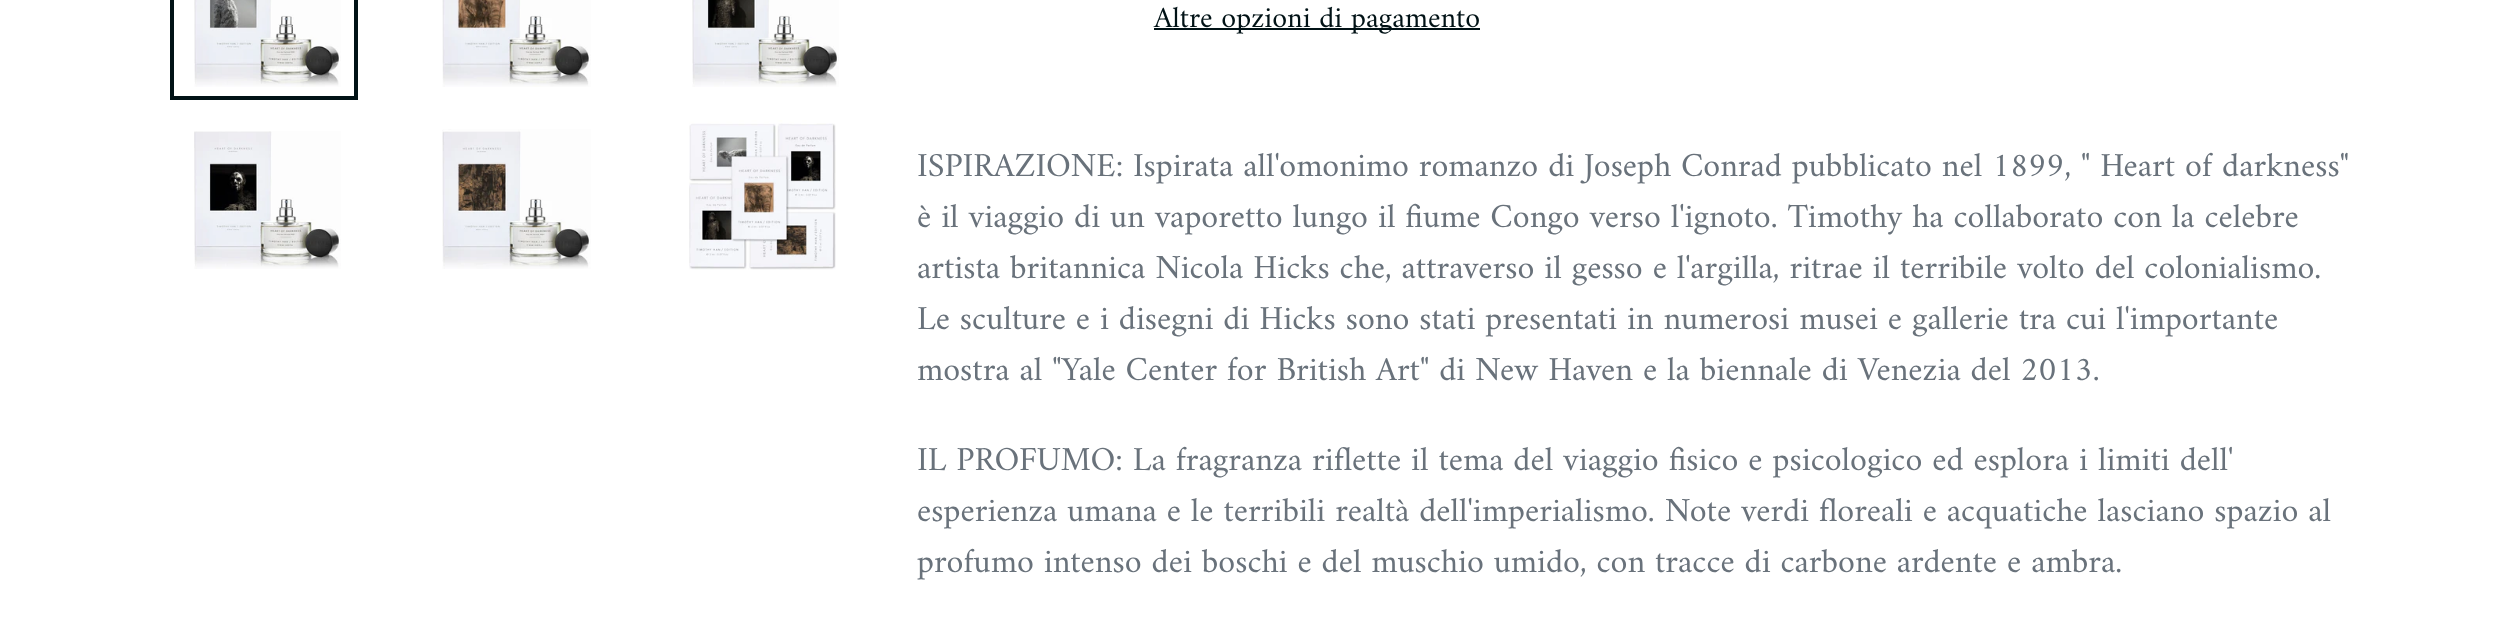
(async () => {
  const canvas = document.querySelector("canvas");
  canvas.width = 2520;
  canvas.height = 640;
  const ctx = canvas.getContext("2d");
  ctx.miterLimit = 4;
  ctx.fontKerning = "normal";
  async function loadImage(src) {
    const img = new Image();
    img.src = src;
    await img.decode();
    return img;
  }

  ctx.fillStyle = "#ffffff";
  ctx.fillRect(0, 0, 2520, 640);
  ctx.strokeStyle = "#011216";
  ctx.lineWidth = 4;
  ctx.strokeRect(172, -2, 184, 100);
  ctx.drawImage(await loadImage("img/1.png"), 194, 0, 147, 87);
  ctx.drawImage(await loadImage("img/2.png"), 442, 0, 149, 87);
  ctx.drawImage(await loadImage("img/3.png"), 692, 0, 147, 87);
  ctx.drawImage(await loadImage("img/4.png"), 194, 131, 147, 138);
  ctx.drawImage(await loadImage("img/5.png"), 442, 129, 149, 140);
  ctx.drawImage(await loadImage("img/6.png"), 689, 120, 147, 150);
  ctx.fillStyle = "#011216";
  ctx.fillRect(1154, 28, 326, 2);
  ctx.font = "30px Amiri";
  ctx.fillText("Altre opzioni di pagamento", 1154, 27);
  ctx.font = "34px Amiri";
  ctx.fillStyle = "#69727b";
  for (const [text, x, y] of [
    ["ISPIRAZIONE: Ispirata all'omonimo romanzo di Joseph Conrad pubblicato nel 1899, \" Heart of darkness\"", 917, 176],
    ["è il viaggio di un vaporetto lungo il fiume Congo verso l'ignoto. Timothy ha collaborato con la celebre", 917, 227],
    ["artista britannica Nicola Hicks che, attraverso il gesso e l'argilla, ritrae il terribile volto del colonialismo.", 917, 278],
    ["Le sculture e i disegni di Hicks sono stati presentati in numerosi musei e gallerie tra cui l'importante", 917, 329],
    ["mostra al \"Yale Center for British Art\" di New Haven e la biennale di Venezia del 2013.", 917, 380],
    ["IL PROFUMO: La fragranza riflette il tema del viaggio fisico e psicologico ed esplora i limiti dell'", 917, 470],
    ["esperienza umana e le terribili realtà dell'imperialismo. Note verdi floreali e acquatiche lasciano spazio al", 917, 521],
    ["profumo intenso dei boschi e del muschio umido, con tracce di carbone ardente e ambra.", 917, 572],
  ]) {
    ctx.fillText(text, x, y);
  }
})();
